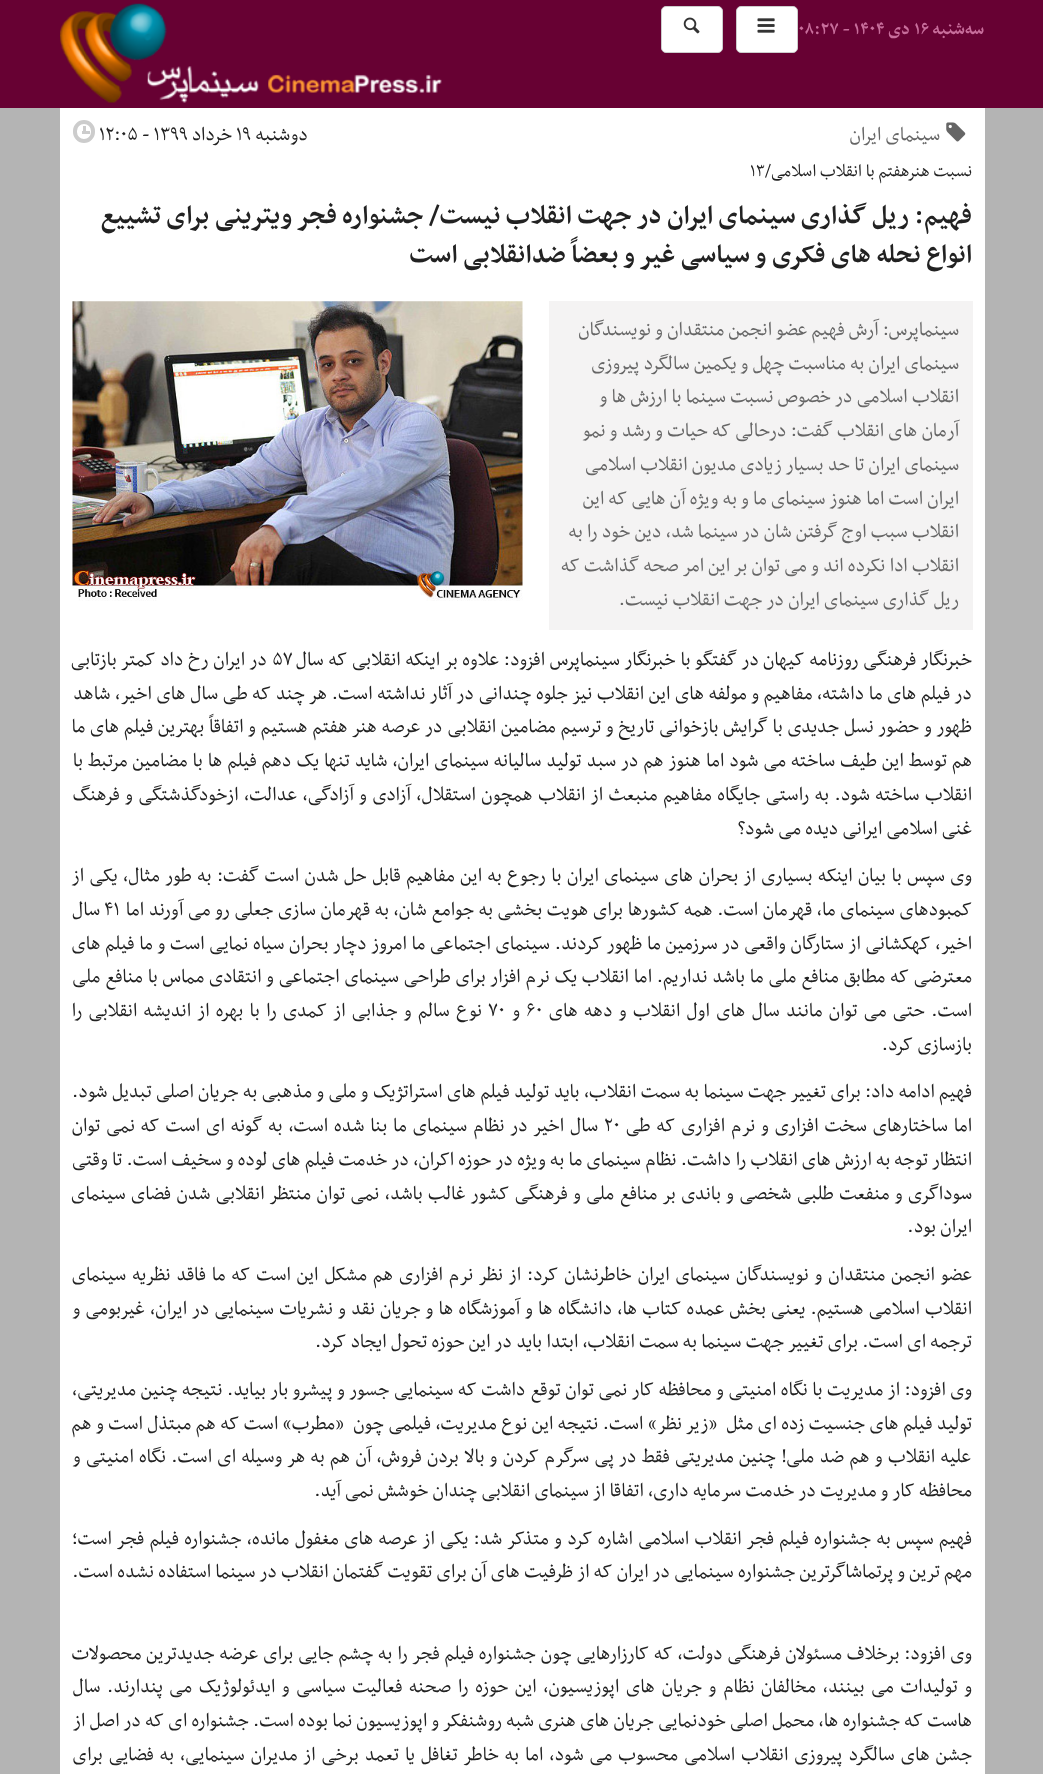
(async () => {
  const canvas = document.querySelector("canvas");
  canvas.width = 1043;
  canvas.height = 1774;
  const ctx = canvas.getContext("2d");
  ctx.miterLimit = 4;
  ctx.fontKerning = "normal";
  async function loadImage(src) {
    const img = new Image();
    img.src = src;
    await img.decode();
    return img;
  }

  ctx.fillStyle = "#b4b4b4";
  ctx.fillRect(0, 0, 1043, 1774);
  ctx.fillStyle = "#670133";
  ctx.fillRect(0, 0, 1043, 108);
  ctx.fillStyle = "#ffffff";
  ctx.beginPath();
  ctx.roundRect(736.5, 6.5, 61, 46, 4.5);
  ctx.fill();
  ctx.strokeStyle = "#cccccc";
  ctx.stroke();
  ctx.drawImage(await loadImage("img/1.png"), 757, 18, 18, 15);
  ctx.beginPath();
  ctx.roundRect(661.5, 6.5, 61, 46, 4.5);
  ctx.fill();
  ctx.stroke();
  ctx.drawImage(await loadImage("img/2.png"), 683, 17, 17, 17);
  ctx.drawImage(await loadImage("img/3.png"), 60, 3, 382, 100);
  ctx.fillRect(60, 108, 925, 1666);
  ctx.drawImage(await loadImage("img/4.png"), 946, 122, 20, 20);
  ctx.beginPath();
  ctx.roundRect(75, 122, 18, 19, 9);
  ctx.lineWidth = 4;
  ctx.stroke();
  ctx.fillStyle = "#cccccc";
  ctx.fillRect(82, 131, 8, 3);
  ctx.fillRect(83, 126, 3, 8);
  ctx.drawImage(await loadImage("img/5.png"), 72, 301, 451, 300);
  ctx.fillStyle = "#f4f3f3";
  ctx.fillRect(549, 301, 424, 329);
  ctx.direction = "rtl";
  ctx.font = "bold 20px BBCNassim";
  ctx.fillStyle = "#c86e9c";
  ctx.fillText("سه‌شنبه", 984, 34);
  ctx.direction = "ltr";
  ctx.fillText("۱۶", 914, 34);
  ctx.direction = "rtl";
  ctx.fillText("دی", 910, 34);
  ctx.direction = "ltr";
  ctx.fillText("۰۸:۲۷ - ۱۴۰۴", 798, 34);
  ctx.direction = "rtl";
  ctx.font = "22.5px BBCNassim";
  ctx.fillStyle = "#666666";
  ctx.fillText("سینمای ایران", 940, 140);
  ctx.fillStyle = "#222222";
  ctx.fillText("دوشنبه", 308, 140);
  ctx.direction = "ltr";
  ctx.fillText("۱۹", 236, 140);
  ctx.direction = "rtl";
  ctx.fillText("خرداد", 232, 140);
  ctx.direction = "ltr";
  ctx.fillText("۱۲:۰۵ - ۱۳۹۹", 99, 140);
  ctx.font = "20px BBCNassim";
  ctx.fillText("۱۳", 750, 176);
  ctx.direction = "rtl";
  ctx.fillText("نسبت هنرهفتم با انقلاب اسلامی/", 972, 176);
  ctx.font = "bold 30px BBCNassim";
  ctx.fillText("فهیم: ریل گذاری سینمای ایران در جهت انقلاب نیست/ جشنواره فجر ویترینی برای تشییع", 972, 223);
  ctx.fillText("انواع نحله های فکری و سیاسی غیر و بعضاً ضدانقلابی است", 972, 262);
  ctx.font = "22.5px BBCNassim";
  ctx.fillStyle = "#666666";
  for (const [text, x, y] of [
    ["سینماپرس: آرش فهیم عضو انجمن منتقدان و نویسندگان", 959, 335],
    ["سینمای ایران به مناسبت چهل و یکمین سالگرد پیروزی", 959, 369],
    ["انقلاب اسلامی در خصوص نسبت سینما با ارزش ها و", 959, 402],
    ["آرمان های انقلاب گفت: درحالی که حیات و رشد و نمو", 959, 436],
    ["سینمای ایران تا حد بسیار زیادی مدیون انقلاب اسلامی", 959, 470],
    ["ایران است اما هنوز سینمای ما و به ویژه آن هایی که این", 959, 504],
    ["انقلاب سبب اوج گرفتن شان در سینما شد، دین خود را به", 959, 537],
    ["انقلاب ادا نکرده اند و می توان بر این امر صحه گذاشت که", 959, 571],
    ["ریل گذاری سینمای ایران در جهت انقلاب نیست.", 959, 605],
  ]) {
    ctx.fillText(text, x, y);
  }
  ctx.wordSpacing = "0.5px";
  ctx.fillStyle = "#222222";
  for (const [text, x, y] of [
    ["خبرنگار فرهنگی روزنامه کیهان", 972, 665],
    ["در گفتگو با خبرنگار سینماپرس", 759, 665],
    ["افزود: علاوه بر اینکه انقلابی که سال", 545, 665],
  ]) {
    ctx.fillText(text, x, y);
  }
  ctx.wordSpacing = "0px";
  ctx.direction = "ltr";
  ctx.fillText("۵٧", 272, 665);
  ctx.wordSpacing = "0.5px";
  ctx.direction = "rtl";
  ctx.fillText("در ایران رخ داد کمتر بازتابی", 267, 665);
  ctx.wordSpacing = "0.4px";
  ctx.fillText("در فیلم های ما داشته، مفاهیم و مولفه های این انقلاب نیز جلوه چندانی در آثار نداشته است. هر چند که طی سال های اخیر، شاهد", 972, 699);
  ctx.wordSpacing = "0.6px";
  ctx.fillText("ظهور و حضور نسل جدیدی با گرایش بازخوانی تاریخ و ترسیم مضامین انقلابی در عرصه هنر هفتم هستیم و اتفاقاً بهترین فیلم های ما", 972, 732);
  ctx.wordSpacing = "0.8px";
  ctx.fillText("هم توسط این طیف ساخته می شود اما هنوز هم در سبد تولید سالیانه سینمای ایران، شاید تنها یک دهم فیلم ها با مضامین مرتبط با", 972, 766);
  ctx.wordSpacing = "1.3px";
  ctx.fillText("انقلاب ساخته شود. به راستی جایگاه مفاهیم منبعث از انقلاب همچون استقلال، آزادی و آزادگی، عدالت، ازخودگذشتگی و فرهنگ", 972, 800);
  ctx.wordSpacing = "0px";
  ctx.fillText("غنی اسلامی ایرانی دیده می شود؟", 972, 834);
  ctx.wordSpacing = "1.25px";
  ctx.fillText("وی سپس با بیان اینکه بسیاری از بحران های سینمای ایران با رجوع به این مفاهیم قابل حل شدن است گفت: به طور مثال، یکی از", 972, 881);
  ctx.wordSpacing = "0.4px";
  ctx.fillText("کمبودهای سینمای ما، قهرمان است. همه کشورها برای هویت بخشی به جوامع شان، به قهرمان سازی جعلی رو می آورند اما", 972, 915);
  ctx.wordSpacing = "0px";
  ctx.direction = "ltr";
  ctx.fillText("۴١", 104, 915);
  ctx.direction = "rtl";
  ctx.fillText("سال", 100, 915);
  ctx.wordSpacing = "0.5px";
  ctx.fillText("اخیر، کهکشانی از ستارگان واقعی در سرزمین ما ظهور کردند. سینمای اجتماعی ما امروز دچار بحران سیاه نمایی است و ما فیلم های", 972, 949);
  ctx.wordSpacing = "0.6px";
  ctx.fillText("معترضی که مطابق منافع ملی ما باشد نداریم. اما انقلاب یک نرم افزار برای طراحی سینمای اجتماعی و انتقادی مماس با منافع ملی", 972, 982);
  ctx.wordSpacing = "2.1px";
  ctx.fillText("است. حتی می توان مانند سال های اول انقلاب و دهه های", 972, 1016);
  ctx.wordSpacing = "0px";
  ctx.direction = "ltr";
  ctx.fillText("۶٠", 526, 1016);
  ctx.direction = "rtl";
  ctx.fillText("و", 520, 1016);
  ctx.direction = "ltr";
  ctx.fillText("٧٠", 488, 1016);
  ctx.wordSpacing = "2.1px";
  ctx.direction = "rtl";
  ctx.fillText("نوع سالم و جذابی از کمدی را با بهره از اندیشه انقلابی را", 482, 1016);
  ctx.wordSpacing = "0px";
  ctx.fillText("بازسازی کرد.", 972, 1050);
  ctx.wordSpacing = "0.2px";
  ctx.fillText("فهیم ادامه داد: برای تغییر جهت سینما به سمت انقلاب، باید تولید فیلم های استراتژیک و ملی و مذهبی به جریان اصلی تبدیل شود.", 972, 1097);
  ctx.wordSpacing = "1.7px";
  ctx.fillText("اما ساختارهای سخت افزاری و نرم افزاری که طی", 972, 1131);
  ctx.wordSpacing = "0px";
  ctx.direction = "ltr";
  ctx.fillText("٢٠", 604, 1131);
  ctx.wordSpacing = "1.7px";
  ctx.direction = "rtl";
  ctx.fillText("سال اخیر در نظام سینمای ما بنا شده است، به گونه ای است که نمی توان", 598, 1131);
  ctx.wordSpacing = "0px";
  ctx.fillText("انتظار توجه به ارزش های انقلاب را داشت. نظام سینمای ما به ویژه در حوزه اکران، در خدمت فیلم های لوده و سخیف است. تا وقتی", 972, 1165);
  ctx.wordSpacing = "1.2px";
  ctx.fillText("سوداگری و منفعت طلبی شخصی و باندی بر منافع ملی و فرهنگی کشور غالب باشد، نمی توان منتظر انقلابی شدن فضای سینمای", 972, 1199);
  ctx.wordSpacing = "0px";
  ctx.fillText("ایران بود.", 972, 1232);
  ctx.wordSpacing = "1.75px";
  ctx.fillText("عضو انجمن منتقدان و نویسندگان سینمای ایران خاطرنشان کرد: از نظر نرم افزاری هم مشکل این است که ما فاقد نظریه سینمای", 972, 1280);
  ctx.wordSpacing = "0.9px";
  ctx.fillText("انقلاب اسلامی هستیم. یعنی بخش عمده کتاب ها، دانشگاه ها و آموزشگاه ها و جریان نقد و نشریات سینمایی در ایران، غیربومی و", 972, 1314);
  ctx.wordSpacing = "0px";
  ctx.fillText("ترجمه ای است. برای تغییر جهت سینما به سمت انقلاب، ابتدا باید در این حوزه تحول ایجاد کرد.", 972, 1347);
  ctx.wordSpacing = "0.35px";
  ctx.fillText("وی افزود: از مدیریت با نگاه امنیتی و محافظه کار نمی توان توقع داشت که سینمایی جسور و پیشرو بار بیاید. نتیجه چنین مدیریتی،", 972, 1395);
  ctx.wordSpacing = "0.25px";
  ctx.fillText("تولید فیلم های جنسیت زده ای مثل  «زیر نظر» است. نتیجه این نوع مدیریت، فیلمی چون  «مطرب» است که هم مبتذل است و هم", 972, 1429);
  ctx.wordSpacing = "1.05px";
  ctx.fillText("علیه انقلاب و هم ضد ملی! چنین مدیریتی فقط در پی سرگرم کردن و بالا بردن فروش، آن هم به هر وسیله ای است. نگاه امنیتی و", 971, 1462);
  ctx.wordSpacing = "0px";
  ctx.fillText("محافظه کار و مدیریت در خدمت سرمایه داری، اتفاقا از سینمای انقلابی چندان خوشش نمی آید.", 972, 1496);
  ctx.wordSpacing = "1.1px";
  ctx.fillText("فهیم سپس به جشنواره فیلم فجر انقلاب اسلامی اشاره کرد و متذکر شد: یکی از عرصه های مغفول مانده، جشنواره فیلم فجر است؛", 972, 1544);
  ctx.wordSpacing = "0px";
  ctx.fillText("مهم ترین و پرتماشاگرترین جشنواره سینمایی در ایران که از ظرفیت های آن برای تقویت گفتمان انقلاب در سینما استفاده نشده است.", 972, 1577);
  ctx.wordSpacing = "0.6px";
  ctx.fillText("وی افزود: برخلاف مسئولان فرهنگی دولت، که کارزارهایی چون جشنواره فیلم فجر را به چشم جایی برای عرضه جدیدترین محصولات", 972, 1659);
  ctx.wordSpacing = "2.4px";
  ctx.fillText("و تولیدات می بینند، مخالفان نظام و جریان های اپوزیسیون، این حوزه را صحنه فعالیت سیاسی و ایدئولوژیک می پندارند. سال", 972, 1692);
  ctx.wordSpacing = "0px";
  ctx.fillText("هاست که جشنواره ها، محمل اصلی خودنمایی جریان های هنری شبه روشنفکر و اپوزیسیون نما بوده است. جشنواره ای که در اصل از", 972, 1726);
  ctx.wordSpacing = "1.8px";
  ctx.fillText("جشن های سالگرد پیروزی انقلاب اسلامی محسوب می شود، اما به خاطر تغافل یا تعمد برخی از مدیران سینمایی، به فضایی برای", 972, 1760);
})();
